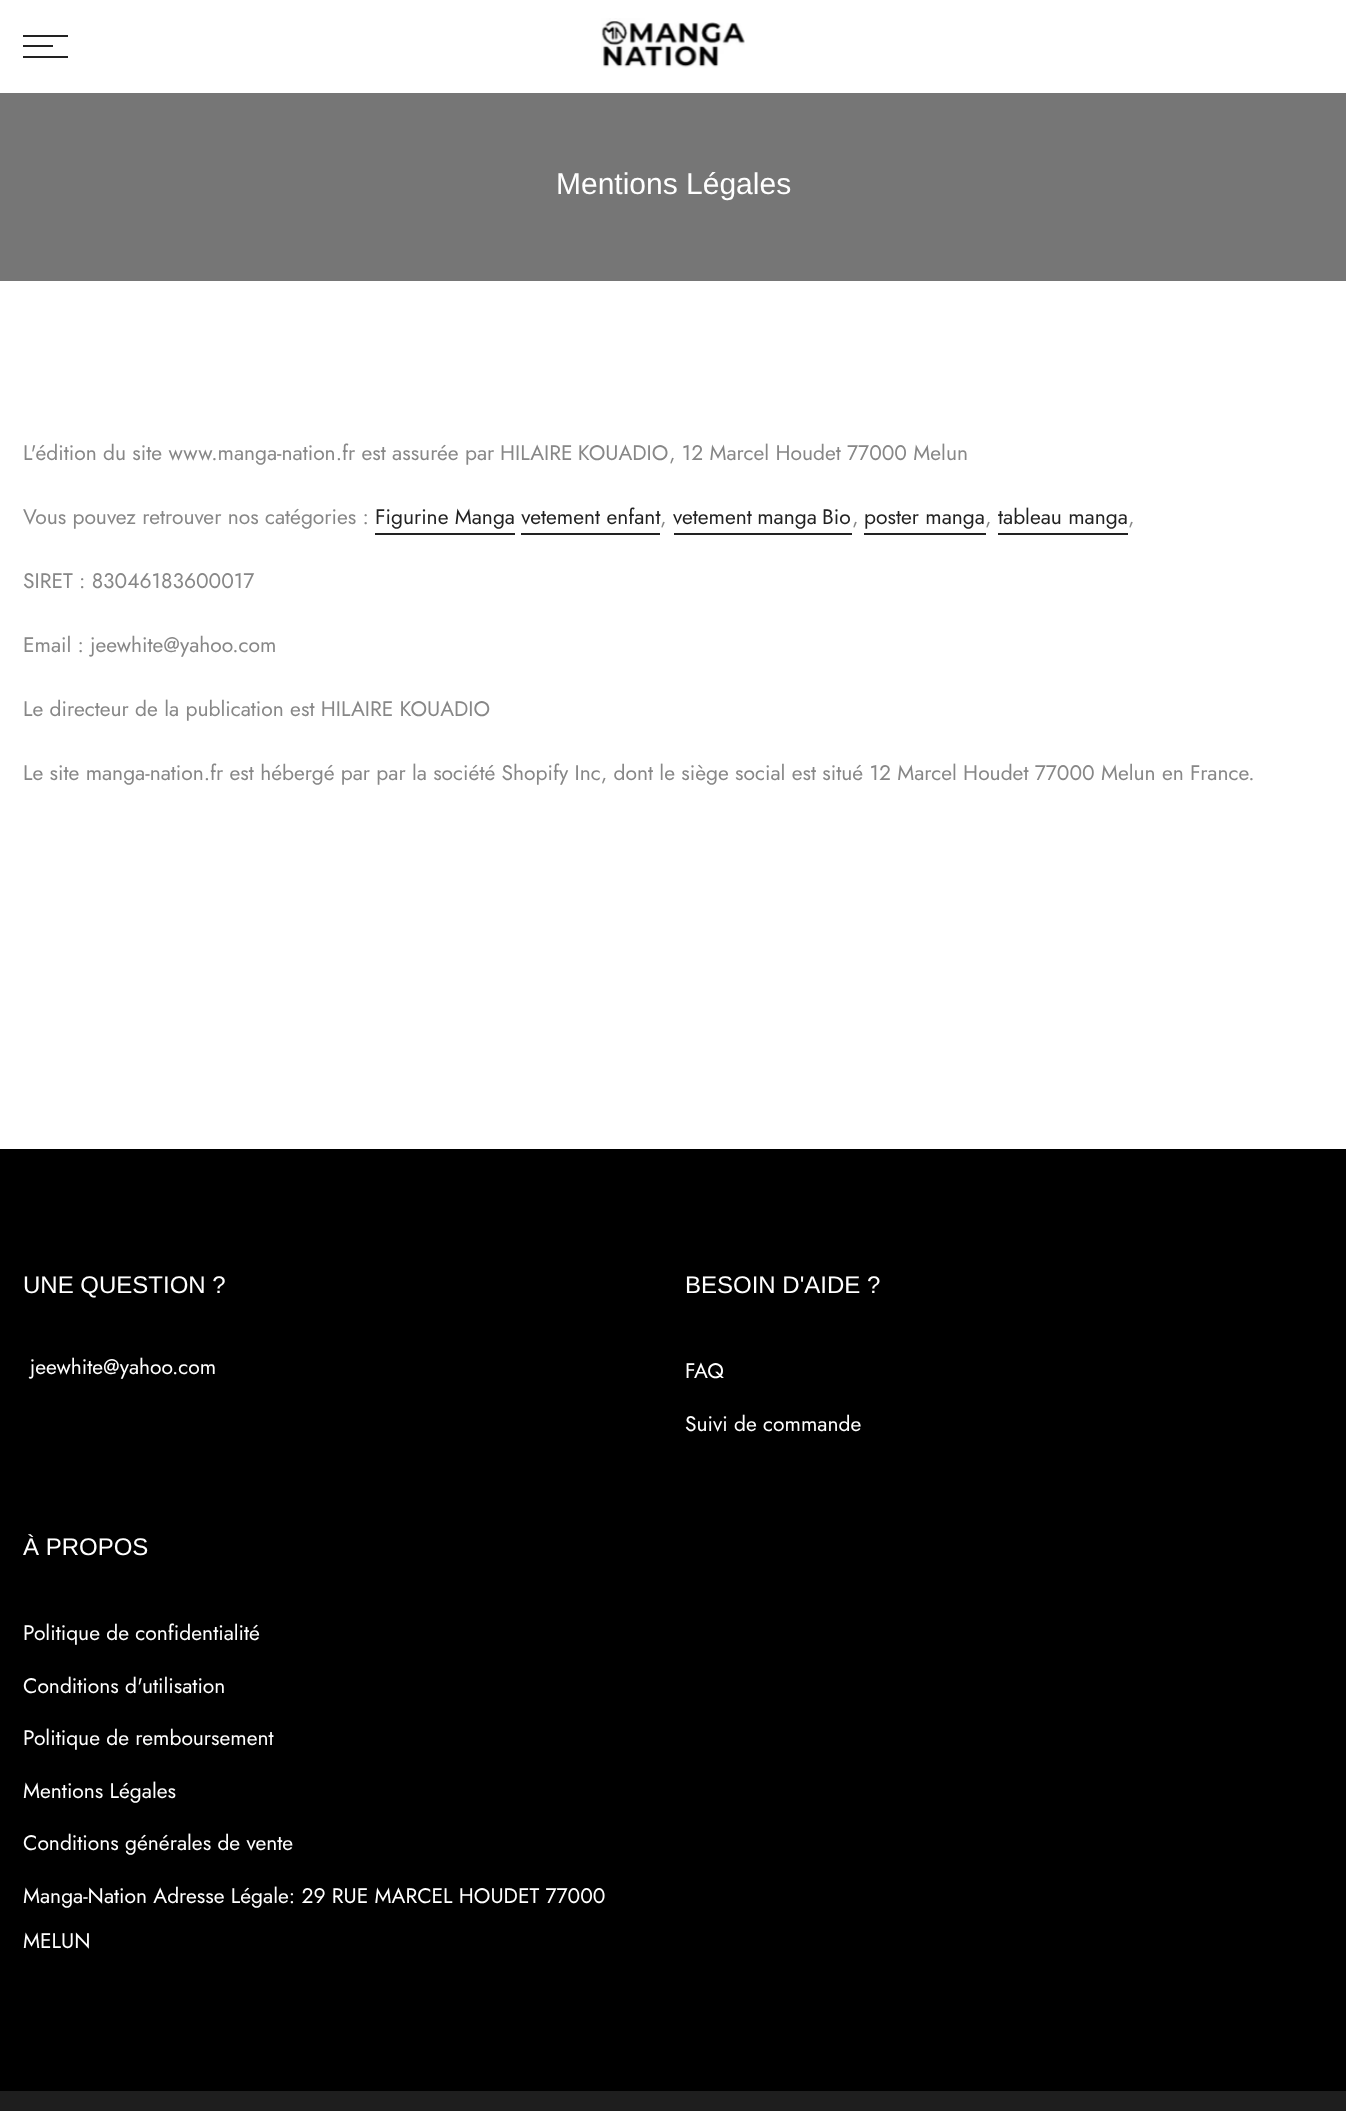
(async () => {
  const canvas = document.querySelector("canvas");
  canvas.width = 1346;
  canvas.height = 2111;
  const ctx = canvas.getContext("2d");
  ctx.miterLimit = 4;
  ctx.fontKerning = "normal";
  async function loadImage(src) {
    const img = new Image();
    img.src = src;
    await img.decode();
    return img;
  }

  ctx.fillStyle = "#ffffff";
  ctx.fillRect(0, 0, 1346, 2111);
  for (const [x, y, w, h, color] of [
    [23, 35, 45, 2, "#222222"],
    [23, 45, 30, 2, "#222222"],
    [23, 56, 45, 2, "#222222"],
  ]) {
    ctx.fillStyle = color;
    ctx.fillRect(x, y, w, h);
  }
  ctx.drawImage(await loadImage("img/1.png"), 601, 18, 144, 50);
  for (const [x, y, w, h, color] of [
    [0, 93, 1346, 188, "#767676"],
    [375, 533, 140, 2, "#222222"],
    [674, 533, 178, 2, "#222222"],
    [864, 533, 122, 2, "#222222"],
    [998, 533, 130, 2, "#222222"],
    [521, 533, 139, 2, "#222222"],
    [0, 1149, 1346, 942, "#000000"],
    [0, 2091, 1346, 20, "#1e1e1e"],
  ]) {
    ctx.fillStyle = color;
    ctx.fillRect(x, y, w, h);
  }
  ctx.font = "30px Liberation Sans";
  ctx.fillStyle = "#ffffff";
  ctx.fillText("Mentions Légales", 556, 194);
  ctx.font = "21px Jost";
  ctx.fillStyle = "#878787";
  ctx.fillText("L'édition du site www.manga-nation.fr est assurée par", 23, 460);
  ctx.wordSpacing = "-1px";
  ctx.fillText("HILAIRE KOUADIO", 500, 460);
  ctx.wordSpacing = "0px";
  ctx.fillText(", 12 Marcel Houdet 77000 Melun", 669, 460);
  ctx.fillText("Vous pouvez retrouver nos catégories :", 23, 524);
  ctx.fillStyle = "#222222";
  ctx.fillText("Figurine Manga vetement enfant", 375, 524);
  ctx.fillStyle = "#878787";
  ctx.fillText(",", 660, 524);
  ctx.wordSpacing = "-1px";
  ctx.fillStyle = "#222222";
  ctx.fillText("vetement manga Bio", 673, 524);
  ctx.wordSpacing = "0px";
  ctx.fillStyle = "#878787";
  ctx.fillText(",", 852, 524);
  ctx.fillStyle = "#222222";
  ctx.fillText("poster manga", 864, 524);
  ctx.fillStyle = "#878787";
  ctx.fillText(",", 985, 524);
  ctx.fillStyle = "#222222";
  ctx.fillText("tableau manga", 998, 524);
  ctx.fillStyle = "#878787";
  for (const [text, x, y] of [
    [",", 1128, 524],
    ["SIRET : 83046183600017", 23, 588],
    ["Email : jeewhite@yahoo.com", 23, 652],
    ["Le directeur de la publication est HILAIRE KOUADIO", 23, 716],
    ["Le site manga-nation.fr est hébergé par par la société Shopify Inc, dont le siège social est situé 12 Marcel Houdet 77000 Melun en France.", 23, 780],
  ]) {
    ctx.fillText(text, x, y);
  }
  ctx.font = "24px Liberation Sans";
  ctx.fillStyle = "#ffffff";
  ctx.fillText("UNE QUESTION ?", 23, 1293);
  ctx.font = "21px Jost";
  ctx.fillText("jeewhite@yahoo.com", 30, 1374);
  ctx.font = "24px Liberation Sans";
  ctx.fillText("BESOIN D'AIDE ?", 685, 1293);
  ctx.font = "21px Jost";
  ctx.fillText("FAQ", 685, 1378);
  ctx.fillText("Suivi de commande", 685, 1431);
  ctx.font = "24px Liberation Sans";
  ctx.fillText("À PROPOS", 23, 1555);
  ctx.font = "21px Jost";
  for (const [text, x, y] of [
    ["Politique de confidentialité", 23, 1640],
    ["Conditions d'utilisation", 23, 1693],
    ["Politique de remboursement", 23, 1745],
    ["Mentions Légales", 23, 1798],
    ["Conditions générales de vente", 23, 1850],
    ["Manga-Nation Adresse Légale: 29 RUE MARCEL HOUDET 77000", 23, 1903],
    ["MELUN", 23, 1948],
  ]) {
    ctx.fillText(text, x, y);
  }
})();
